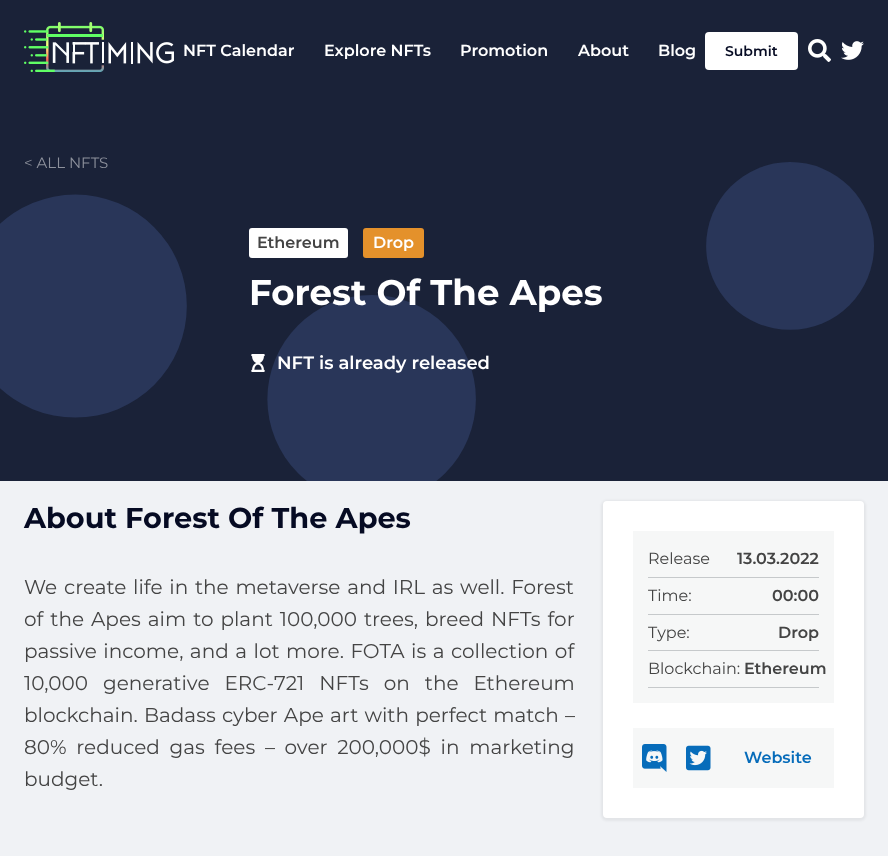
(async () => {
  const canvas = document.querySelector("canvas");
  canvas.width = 888;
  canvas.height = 856;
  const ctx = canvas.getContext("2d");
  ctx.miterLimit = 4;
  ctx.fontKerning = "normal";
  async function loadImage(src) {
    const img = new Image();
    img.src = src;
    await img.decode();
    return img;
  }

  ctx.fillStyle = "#ffffff";
  ctx.fillRect(0, 0, 888, 856);
  ctx.fillStyle = "#1a2238";
  ctx.fillRect(0, 0, 888, 101);
  ctx.drawImage(await loadImage("img/1.png"), 24, 22, 150, 50);
  ctx.fillStyle = "#ffffff";
  ctx.beginPath();
  ctx.roundRect(705, 32, 93, 38, 4);
  ctx.fill();
  ctx.drawImage(await loadImage("img/2.png"), 808, 39, 23, 23);
  ctx.drawImage(await loadImage("img/3.png"), 841, 41, 23, 19);
  ctx.drawImage(await loadImage("img/4.png"), 0, 101, 888, 380);
  ctx.beginPath();
  ctx.roundRect(249, 228, 99, 30, 3);
  ctx.fill();
  ctx.fillStyle = "#e4912b";
  ctx.beginPath();
  ctx.roundRect(363, 228, 61, 30, 3);
  ctx.fill();
  ctx.drawImage(await loadImage("img/5.png"), 251, 354, 14, 18);
  ctx.fillStyle = "#f0f2f5";
  ctx.fillRect(0, 481, 888, 375);
  ctx.fillStyle = "rgba(0, 0, 0, 0.05)";
  ctx.filter = "blur(1px)";
  ctx.beginPath();
  ctx.roundRect(601, 500, 265, 321, 6);
  ctx.fill();
  ctx.filter = "none";
  ctx.fillStyle = "#ffffff";
  ctx.beginPath();
  ctx.roundRect(603, 501, 261, 317, 4);
  ctx.fill();
  for (const [x, y, w, h, color] of [
    [633, 531, 201, 172, "#f6f7f7"],
    [648, 577, 171, 1, "#c6c9cb"],
    [648, 614, 171, 1, "#c6c9cb"],
    [648, 650, 171, 1, "#c6c9cb"],
    [648, 687, 171, 1, "#c6c9cb"],
    [633, 728, 201, 60, "#f6f7f7"],
  ]) {
    ctx.fillStyle = color;
    ctx.fillRect(x, y, w, h);
  }
  ctx.drawImage(await loadImage("img/6.png"), 642, 744, 25, 28);
  ctx.drawImage(await loadImage("img/7.png"), 686, 745, 25, 26);
  ctx.font = "600 16px Montserrat";
  ctx.fillStyle = "#ffffff";
  for (const [text, x, y] of [
    ["NFT Calendar", 183, 56],
    ["Explore NFTs", 324, 56],
    ["Promotion", 460, 56],
    ["About", 578, 56],
    ["Blog", 658, 56],
  ]) {
    ctx.fillText(text, x, y);
  }
  ctx.font = "600 14px Montserrat";
  ctx.fillStyle = "#060b23";
  ctx.fillText("Submit", 725, 56);
  ctx.font = "15px Montserrat";
  ctx.fillStyle = "#8d919c";
  ctx.fillText("< ALL NFTS", 24, 168);
  ctx.font = "600 16px Montserrat";
  ctx.fillStyle = "#444444";
  ctx.fillText("Ethereum", 257, 248);
  ctx.fillStyle = "#ffffff";
  ctx.fillText("Drop", 373, 248);
  ctx.font = "bold 35.6px Montserrat";
  ctx.fillText("Forest Of The Apes", 249, 305);
  ctx.font = "600 18px Montserrat";
  ctx.fillText("NFT is already released", 277, 369);
  ctx.font = "bold 28.75px Montserrat";
  ctx.fillStyle = "#060b23";
  ctx.fillText("About Forest Of The Apes", 24, 528);
  ctx.wordSpacing = "1.5px";
  ctx.font = "20px Montserrat";
  ctx.fillStyle = "#444444";
  ctx.fillText("We create life in the metaverse and IRL as well. Forest", 24, 594);
  ctx.wordSpacing = "1.75px";
  ctx.fillText("of the Apes aim to plant 100,000 trees, breed NFTs for", 24, 626);
  ctx.wordSpacing = "1.25px";
  ctx.fillText("passive income, and a lot more. FOTA is a collection of", 24, 658);
  ctx.wordSpacing = "9.75px";
  ctx.fillText("10,000 generative ERC-721 NFTs on the Ethereum", 24, 690);
  ctx.wordSpacing = "1px";
  ctx.fillText("blockchain. Badass cyber Ape art with perfect match –", 24, 722);
  ctx.wordSpacing = "4.5px";
  ctx.fillText("80% reduced gas fees – over 200,000$ in marketing", 24, 754);
  ctx.wordSpacing = "0px";
  ctx.fillText("budget.", 24, 786);
  ctx.font = "16px Montserrat";
  ctx.fillText("Release", 648, 564);
  ctx.font = "600 16px Montserrat";
  ctx.fillText("13.03.2022", 737, 564);
  ctx.font = "16px Montserrat";
  ctx.fillText("Time:", 648, 601);
  ctx.font = "600 16px Montserrat";
  ctx.fillText("00:00", 772, 601);
  ctx.font = "16px Montserrat";
  ctx.fillText("Type:", 648, 638);
  ctx.font = "600 16px Montserrat";
  ctx.fillText("Drop", 778, 638);
  ctx.font = "16px Montserrat";
  ctx.fillText("Blockchain:", 648, 674);
  ctx.font = "600 16px Montserrat";
  ctx.fillText("Ethereum", 744, 674);
  ctx.fillStyle = "#076cba";
  ctx.fillText("Website", 744, 763);
})();
